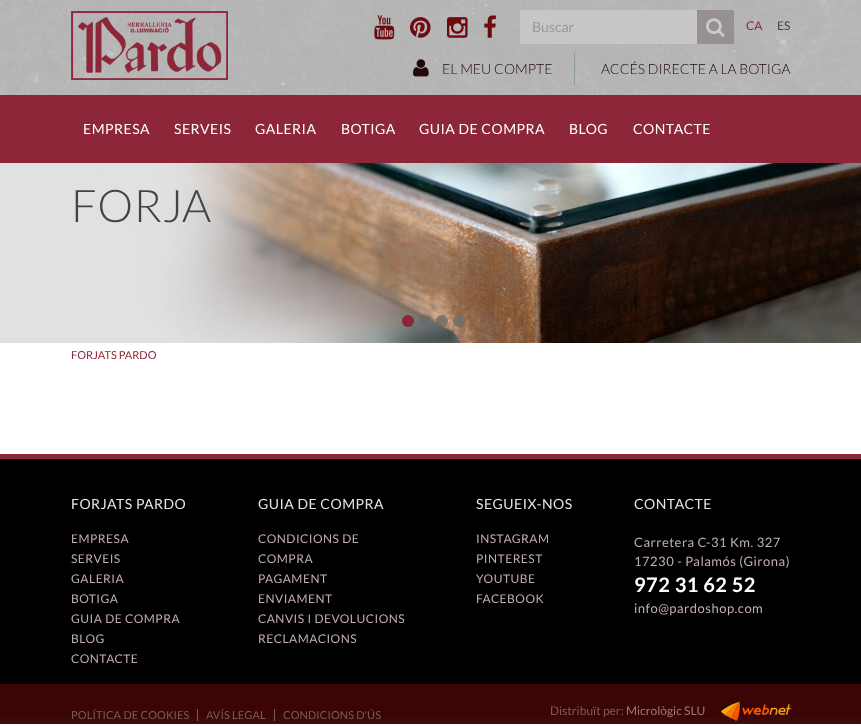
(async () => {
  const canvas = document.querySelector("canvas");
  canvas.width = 861;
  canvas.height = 726;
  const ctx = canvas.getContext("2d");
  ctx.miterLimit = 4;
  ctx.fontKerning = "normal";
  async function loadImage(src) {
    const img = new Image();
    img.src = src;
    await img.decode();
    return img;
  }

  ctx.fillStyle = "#ffffff";
  ctx.fillRect(0, 0, 861, 726);
  ctx.drawImage(await loadImage("img/1.png"), 0, 0, 861, 95);
  ctx.drawImage(await loadImage("img/2.png"), 71, 11, 157, 69);
  ctx.drawImage(await loadImage("img/3.png"), 374, 15, 21, 25);
  ctx.drawImage(await loadImage("img/4.png"), 410, 17, 21, 21);
  ctx.drawImage(await loadImage("img/5.png"), 447, 17, 21, 21);
  ctx.drawImage(await loadImage("img/6.png"), 484, 15, 12, 23);
  ctx.fillStyle = "rgba(205, 203, 203, 0.75)";
  ctx.fillRect(520, 10, 177, 34);
  ctx.fillStyle = "#969090";
  ctx.fillRect(697, 10, 37, 34);
  ctx.drawImage(await loadImage("img/7.png"), 706, 18, 19, 19);
  ctx.fillStyle = "#8b989f";
  ctx.fillRect(574, 53, 1, 32);
  ctx.drawImage(await loadImage("img/8.png"), 413, 59, 16, 18);
  ctx.fillStyle = "#8c2638";
  ctx.fillRect(0, 95, 861, 68);
  ctx.drawImage(await loadImage("img/9.png"), 0, 163, 861, 180);
  ctx.beginPath();
  ctx.arc(408, 321, 6, 0, Math.PI * 2);
  ctx.fill();
  ctx.fillStyle = "rgba(105, 107, 107, 0.8)";
  ctx.beginPath();
  ctx.arc(425, 321, 6, 0, Math.PI * 2);
  ctx.fill();
  ctx.beginPath();
  ctx.arc(442, 321, 6, 0, Math.PI * 2);
  ctx.fill();
  ctx.beginPath();
  ctx.arc(459, 321, 6, 0, Math.PI * 2);
  ctx.fill();
  for (const [x, y, w, h, color] of [
    [0, 459, 861, 225, "#000000"],
    [0, 454, 861, 5, "#8c2638"],
    [0, 684, 861, 40, "#3b0507"],
    [197, 709, 1, 12, "#7e5c52"],
    [274, 709, 1, 12, "#7e5c52"],
  ]) {
    ctx.fillStyle = color;
    ctx.fillRect(x, y, w, h);
  }
  ctx.drawImage(await loadImage("img/10.png"), 721, 702, 70, 19);
  ctx.fillStyle = "#444444";
  ctx.filter = "blur(5px)";
  ctx.beginPath();
  ctx.rect(0, 724, 861, 2);
  ctx.fill();
  ctx.filter = "none";
  ctx.fillStyle = "#ffffff";
  ctx.fillRect(0, 724, 861, 2);
  ctx.font = "14px Lato";
  ctx.fillStyle = "#999999";
  ctx.fillText("Buscar", 532, 32);
  ctx.font = "12px Lato";
  ctx.fillStyle = "#8c2638";
  ctx.fillText("CA", 746, 30);
  ctx.fillStyle = "#454444";
  ctx.fillText("ES", 777, 30);
  ctx.font = "300 14px Lato";
  ctx.fillStyle = "#220a0a";
  ctx.fillText("EL MEU COMPTE", 442, 74);
  ctx.fillText("ACCÉS DIRECTE A LA BOTIGA", 601, 74);
  ctx.letterSpacing = "0.5px";
  ctx.font = "14px Lato";
  ctx.fillStyle = "#ffffff";
  for (const [text, x, y] of [
    ["EMPRESA", 83, 134],
    ["SERVEIS", 174, 134],
    ["GALERIA", 255, 134],
    ["BOTIGA", 341, 134],
    ["GUIA DE COMPRA", 419, 134],
    ["BLOG", 569, 134],
    ["CONTACTE", 633, 134],
  ]) {
    ctx.fillText(text, x, y);
  }
  ctx.font = "300 45px Lato";
  ctx.fillStyle = "#454444";
  ctx.fillText("FORJA", 71, 222);
  ctx.letterSpacing = "0px";
  ctx.font = "11px Lato";
  ctx.fillStyle = "#8c2638";
  ctx.fillText("FORJATS PARDO", 71, 359);
  ctx.letterSpacing = "0.5px";
  ctx.font = "14px Lato";
  ctx.fillStyle = "#e5e5e5";
  ctx.fillText("FORJATS PARDO", 71, 509);
  ctx.font = "12px Lato";
  ctx.fillStyle = "#c3adad";
  for (const [text, x, y] of [
    ["EMPRESA", 71, 543],
    ["SERVEIS", 71, 563],
    ["GALERIA", 71, 583],
    ["BOTIGA", 71, 603],
    ["GUIA DE COMPRA", 71, 623],
    ["BLOG", 71, 643],
    ["CONTACTE", 71, 663],
  ]) {
    ctx.fillText(text, x, y);
  }
  ctx.font = "14px Lato";
  ctx.fillStyle = "#e5e5e5";
  ctx.fillText("GUIA DE COMPRA", 258, 509);
  ctx.font = "12px Lato";
  ctx.fillStyle = "#c3adad";
  for (const [text, x, y] of [
    ["CONDICIONS DE", 258, 543],
    ["COMPRA", 258, 563],
    ["PAGAMENT", 258, 583],
    ["ENVIAMENT", 258, 603],
    ["CANVIS I DEVOLUCIONS", 258, 623],
    ["RECLAMACIONS", 258, 643],
  ]) {
    ctx.fillText(text, x, y);
  }
  ctx.font = "14px Lato";
  ctx.fillStyle = "#e5e5e5";
  ctx.fillText("SEGUEIX-NOS", 476, 509);
  ctx.font = "12px Lato";
  ctx.fillStyle = "#c3adad";
  for (const [text, x, y] of [
    ["INSTAGRAM", 476, 543],
    ["PINTEREST", 476, 563],
    ["YOUTUBE", 476, 583],
    ["FACEBOOK", 476, 603],
  ]) {
    ctx.fillText(text, x, y);
  }
  ctx.font = "14px Lato";
  ctx.fillStyle = "#e5e5e5";
  ctx.fillText("CONTACTE", 634, 509);
  ctx.font = "13px Lato";
  ctx.fillStyle = "#c3adad";
  ctx.fillText("Carretera C-31 Km. 327", 634, 547);
  ctx.fillText("17230 - Palamós (Girona)", 634, 566);
  ctx.font = "bold 20px Lato";
  ctx.fillStyle = "#ffffff";
  ctx.fillText("972 31 62 52", 634, 592);
  ctx.font = "13px Lato";
  ctx.fillStyle = "#c3adad";
  ctx.fillText("info@pardoshop.com", 634, 613);
  ctx.letterSpacing = "0.1px";
  ctx.font = "11px Lato";
  ctx.fillStyle = "#7e5c52";
  for (const [text, x, y] of [
    ["POLÍTICA DE COOKIES", 71, 719],
    ["AVÍS LEGAL", 206, 719],
    ["CONDICIONS D'ÚS", 283, 719],
  ]) {
    ctx.fillText(text, x, y);
  }
  ctx.letterSpacing = "0px";
  ctx.font = "12px Lato";
  ctx.fillText("Distribuït per:", 550, 715);
  ctx.fillStyle = "#987f70";
  ctx.fillText("Micrològic SLU", 626, 715);
})();
